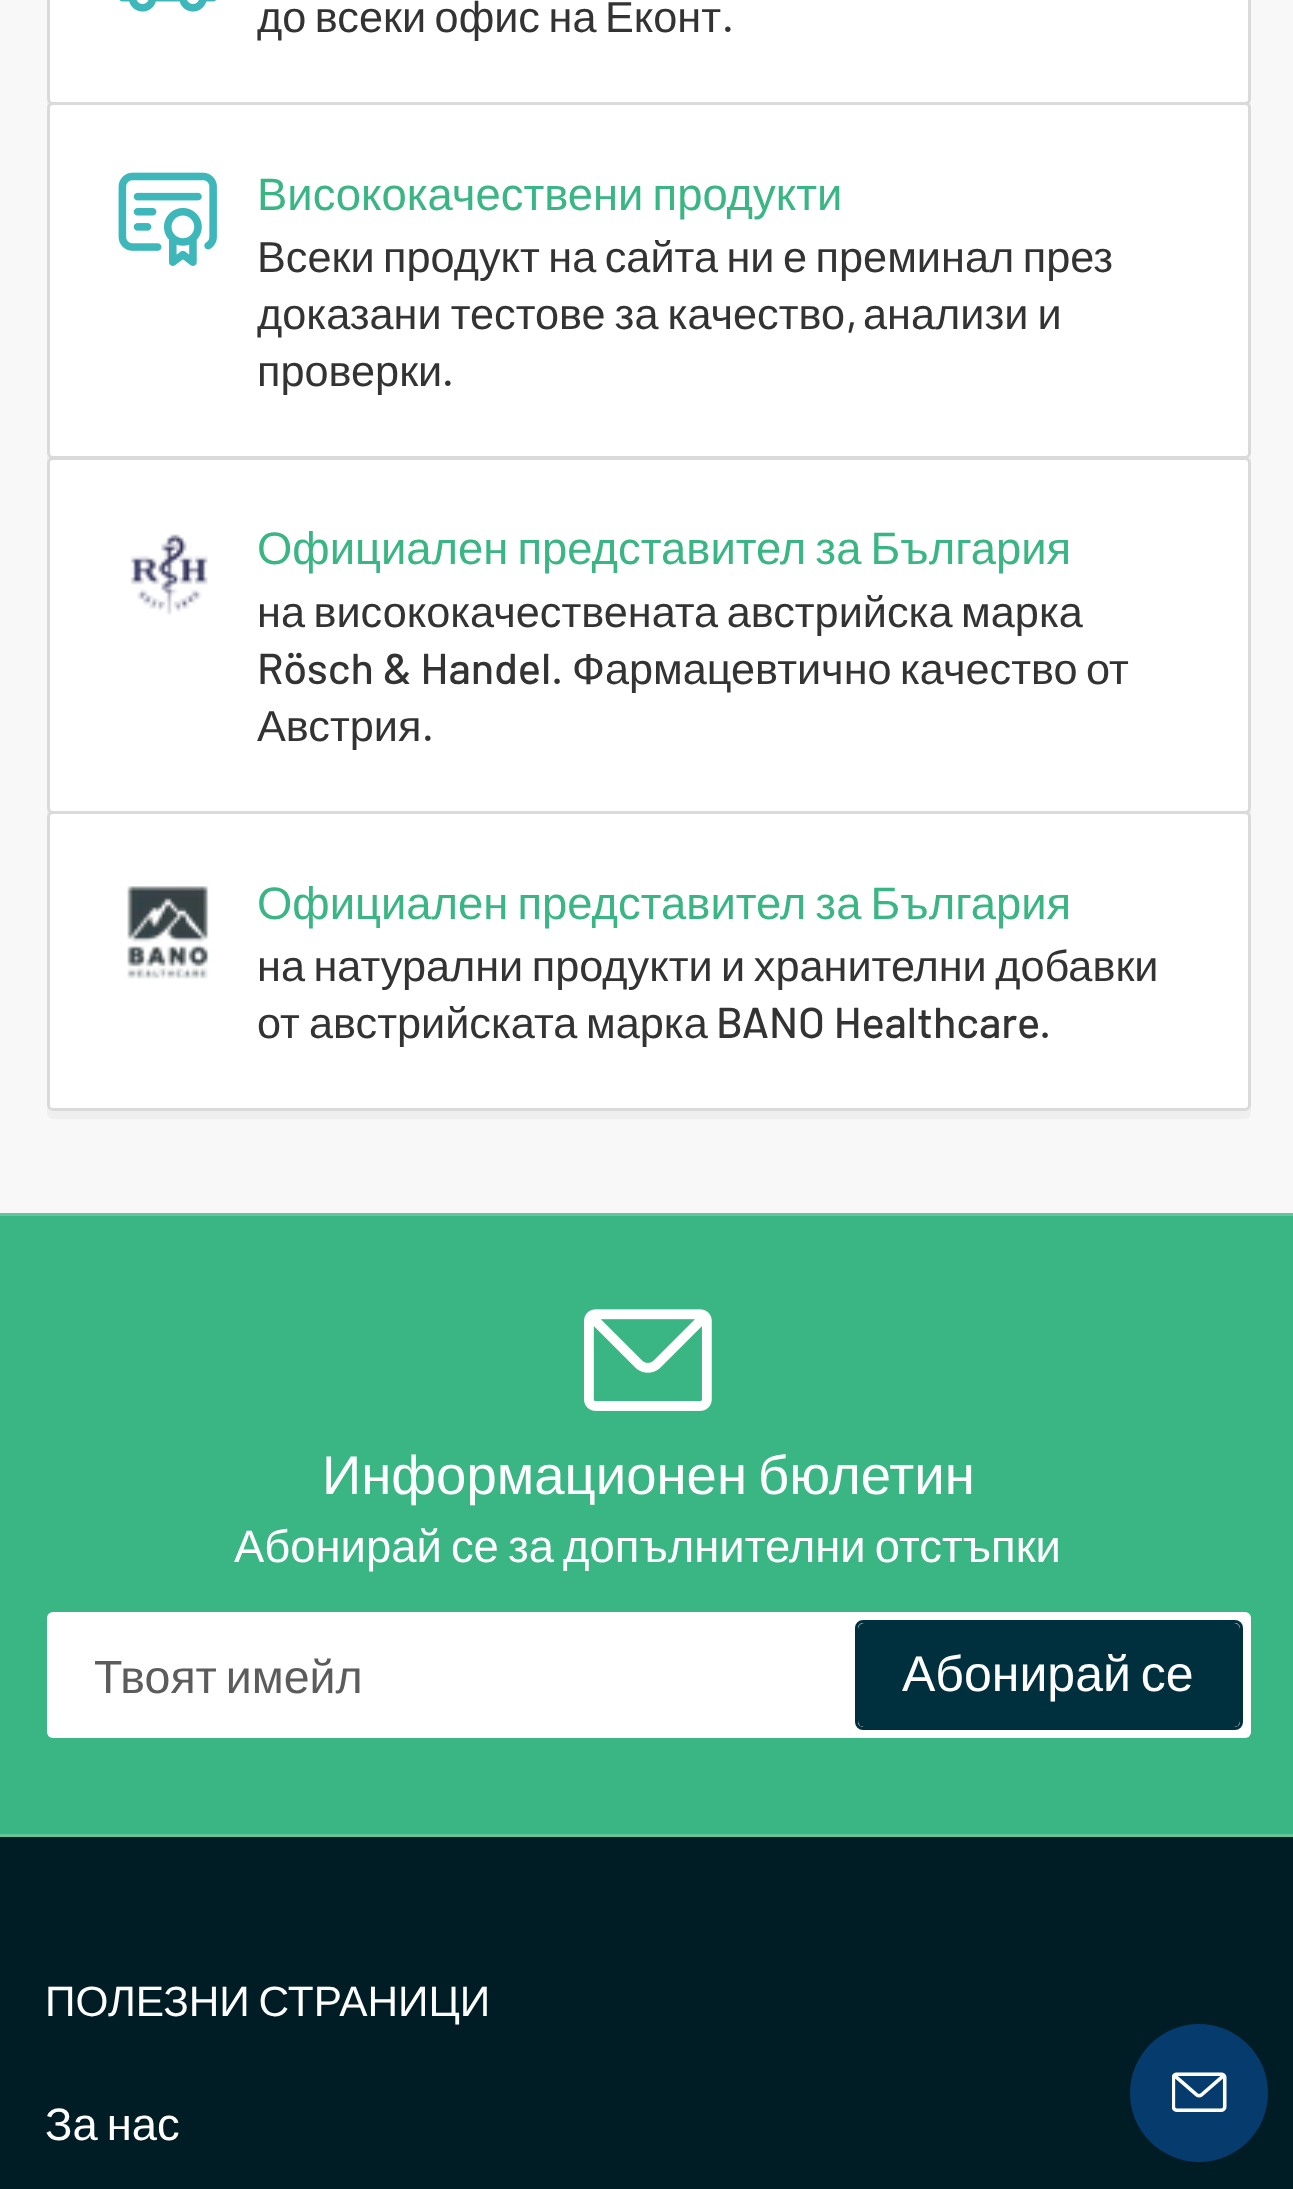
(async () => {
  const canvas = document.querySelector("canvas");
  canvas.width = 1293;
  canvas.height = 2189;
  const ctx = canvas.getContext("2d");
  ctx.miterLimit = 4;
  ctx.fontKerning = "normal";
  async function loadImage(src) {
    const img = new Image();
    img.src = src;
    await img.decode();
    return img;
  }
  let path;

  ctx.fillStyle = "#f8f8f8";
  ctx.fillRect(0, 0, 1293, 2189);
  ctx.fillStyle = "#efefef";
  path = new Path2D("M47 101V107C47 110 50 113 53 113H1245C1248 113 1251 110 1251 107V101C1250 103 1248 104 1246 104H52C50 104 48 103 47 101Z");
  ctx.fill(path);
  ctx.fillStyle = "#ffffff";
  ctx.beginPath();
  ctx.roundRect(48.5, -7.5, 1201, 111, 4.5);
  ctx.fill();
  ctx.strokeStyle = "#dadada";
  ctx.lineWidth = 3;
  ctx.stroke();
  ctx.drawImage(await loadImage("img/1.png"), 119, 0, 97, 12);
  ctx.fillStyle = "#efefef";
  path = new Path2D("M47 455V462C47 465 50 468 53 468H1245C1248 468 1251 465 1251 462V455C1250 458 1248 459 1246 459H52C50 459 48 458 47 455Z");
  ctx.fill(path);
  ctx.fillStyle = "#ffffff";
  ctx.beginPath();
  ctx.roundRect(48.5, 103.5, 1201, 354, 4.5);
  ctx.fill();
  ctx.stroke();
  ctx.drawImage(await loadImage("img/2.png"), 118, 172, 99, 94);
  ctx.fillStyle = "#efefef";
  path = new Path2D("M47 810V816C47 819 50 822 53 822H1245C1248 822 1251 819 1251 816V810C1250 812 1248 814 1246 814H52C50 814 48 812 47 810Z");
  ctx.fill(path);
  ctx.fillStyle = "#ffffff";
  ctx.beginPath();
  ctx.roundRect(48.5, 458.5, 1201, 354, 4.5);
  ctx.fill();
  ctx.stroke();
  ctx.drawImage(await loadImage("img/3.png"), 130, 534, 78, 81);
  ctx.fillStyle = "#efefef";
  path = new Path2D("M47 1107V1113C47 1116 50 1119 53 1119H1245C1248 1119 1251 1116 1251 1113V1107C1250 1109 1248 1111 1246 1111H52C50 1111 48 1109 47 1107Z");
  ctx.fill(path);
  ctx.fillStyle = "#ffffff";
  ctx.beginPath();
  ctx.roundRect(48.5, 812.5, 1201, 297, 4.5);
  ctx.fill();
  ctx.stroke();
  ctx.drawImage(await loadImage("img/4.png"), 127, 886, 82, 93);
  for (const [x, y, w, h, color] of [
    [0, 1216, 1293, 618, "#3ab584"],
    [0, 1213, 1293, 3, "#61c49d"],
    [0, 1834, 1293, 3, "#61c49d"],
  ]) {
    ctx.fillStyle = color;
    ctx.fillRect(x, y, w, h);
  }
  ctx.drawImage(await loadImage("img/5.png"), 584, 1309, 128, 102);
  ctx.fillStyle = "#ffffff";
  ctx.beginPath();
  ctx.roundRect(47, 1612, 1204, 126, 6);
  ctx.fill();
  ctx.beginPath();
  ctx.roundRect(48.5, 1613.5, 1201, 123, 4.5);
  ctx.strokeStyle = "rgba(255, 255, 255, 0.2)";
  ctx.stroke();
  ctx.beginPath();
  ctx.roundRect(856.5, 1621.5, 385, 107, 6.5);
  ctx.strokeStyle = "#00303e";
  ctx.stroke();
  ctx.fillStyle = "#00303e";
  ctx.beginPath();
  ctx.roundRect(858, 1623, 382, 104, 6);
  ctx.fill();
  ctx.fillStyle = "#001d25";
  ctx.fillRect(0, 1837, 1293, 352);
  ctx.fillStyle = "#053b6d";
  ctx.beginPath();
  ctx.arc(1199, 2093, 69, 0, Math.PI * 2);
  ctx.fill();
  ctx.drawImage(await loadImage("img/6.png"), 1172, 2072, 55, 40);
  ctx.wordSpacing = "-3.5px";
  ctx.font = "43.25px Liberation Sans";
  ctx.fillStyle = "#333333";
  ctx.fillText("до всеки офис на Еконт", 257, 32);
  ctx.wordSpacing = "0px";
  ctx.font = "500 43.25px Barlow";
  ctx.fillText(".", 722, 32);
  ctx.wordSpacing = "-3.5px";
  ctx.font = "45.4px Liberation Sans";
  ctx.fillStyle = "#3ab584";
  ctx.fillText("Висококачествени продукти", 257, 210);
  ctx.font = "43.25px Liberation Sans";
  ctx.fillStyle = "#333333";
  ctx.fillText("Всеки продукт на сайта ни е преминал през", 257, 272);
  ctx.wordSpacing = "-3px";
  ctx.fillText("доказани тестове за качество", 257, 329);
  ctx.wordSpacing = "0px";
  ctx.font = "500 43.25px Barlow";
  ctx.fillText(",", 846, 329);
  ctx.wordSpacing = "-3px";
  ctx.font = "43.25px Liberation Sans";
  ctx.fillText("анализи и", 863, 329);
  ctx.wordSpacing = "0px";
  ctx.fillText("проверки", 257, 386);
  ctx.font = "500 43.25px Barlow";
  ctx.fillText(".", 442, 386);
  ctx.wordSpacing = "-3.5px";
  ctx.font = "45.4px Liberation Sans";
  ctx.fillStyle = "#3ab584";
  ctx.fillText("Официален представител за България", 257, 564);
  ctx.font = "43.25px Liberation Sans";
  ctx.fillStyle = "#333333";
  ctx.fillText("на висококачествената австрийска марка", 257, 627);
  ctx.wordSpacing = "0px";
  ctx.font = "500 43.25px Barlow";
  ctx.fillText("Rösch & Handel.", 257, 684);
  ctx.font = "43.25px Liberation Sans";
  for (const [text, x, y] of [
    ["Фармацевтично", 572, 684],
    ["качество", 900, 684],
    ["от", 1086, 684],
    ["Австрия", 257, 741],
  ]) {
    ctx.fillText(text, x, y);
  }
  ctx.font = "500 43.25px Barlow";
  ctx.fillText(".", 422, 741);
  ctx.wordSpacing = "-3.5px";
  ctx.font = "45.4px Liberation Sans";
  ctx.fillStyle = "#3ab584";
  ctx.fillText("Официален представител за България", 257, 919);
  ctx.font = "43.25px Liberation Sans";
  ctx.fillStyle = "#333333";
  ctx.fillText("на натурални продукти и хранителни добавки", 257, 981);
  ctx.wordSpacing = "0px";
  for (const [text, x, y] of [
    ["от", 257, 1038],
    ["австрийската", 309, 1038],
    ["марка", 586, 1038],
  ]) {
    ctx.fillText(text, x, y);
  }
  ctx.font = "500 43.25px Barlow";
  ctx.fillText("BANO Healthcare.", 716, 1038);
  ctx.wordSpacing = "-4px";
  ctx.font = "54.5px Liberation Sans";
  ctx.fillStyle = "#ffffff";
  ctx.fillText("Информационен бюлетин", 322, 1494);
  ctx.wordSpacing = "-3.5px";
  ctx.font = "45.4px Liberation Sans";
  ctx.fillText("Абонирай се за допълнителни отстъпки", 234, 1562);
  ctx.wordSpacing = "-4px";
  ctx.font = "46.5px Liberation Sans";
  ctx.fillStyle = "#5c5c5c";
  ctx.fillText("Твоят имейл", 94, 1693);
  ctx.font = "50px Liberation Sans";
  ctx.fillStyle = "#ffffff";
  ctx.fillText("Абонирай се", 902, 1691);
  ctx.wordSpacing = "-3px";
  ctx.font = "42.4px Liberation Sans";
  ctx.fillText("ПОЛЕЗНИ СТРАНИЦИ", 45, 2016);
  ctx.wordSpacing = "-3.5px";
  ctx.font = "45.4px Liberation Sans";
  ctx.fillText("За нас", 45, 2140);
})();
